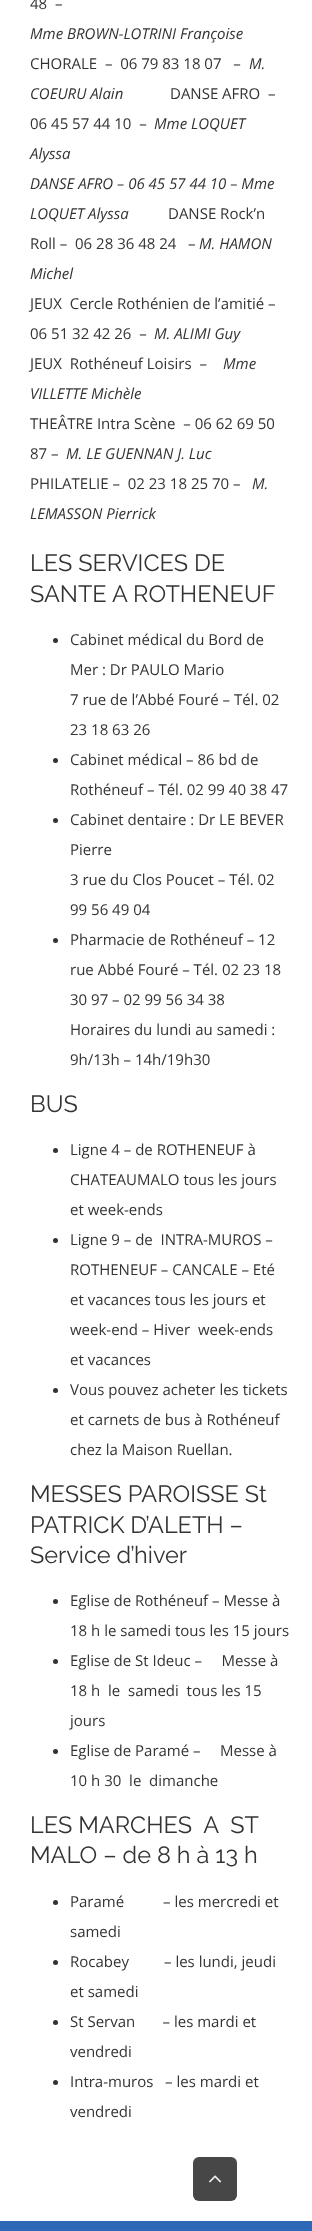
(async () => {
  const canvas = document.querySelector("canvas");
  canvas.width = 312;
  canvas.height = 2231;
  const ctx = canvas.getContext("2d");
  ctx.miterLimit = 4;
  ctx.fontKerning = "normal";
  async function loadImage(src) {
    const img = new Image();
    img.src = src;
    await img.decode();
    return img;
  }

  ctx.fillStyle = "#ffffff";
  ctx.fillRect(0, 0, 312, 2231);
  ctx.fillStyle = "#333333";
  ctx.beginPath();
  ctx.arc(55.5, 640.5, 2.5, 0, Math.PI * 2);
  ctx.fill();
  ctx.beginPath();
  ctx.arc(55.5, 760.5, 2.5, 0, Math.PI * 2);
  ctx.fill();
  ctx.beginPath();
  ctx.arc(55.5, 820.5, 2.5, 0, Math.PI * 2);
  ctx.fill();
  ctx.beginPath();
  ctx.arc(55.5, 940.5, 2.5, 0, Math.PI * 2);
  ctx.fill();
  ctx.beginPath();
  ctx.arc(55.5, 1150.5, 2.5, 0, Math.PI * 2);
  ctx.fill();
  ctx.beginPath();
  ctx.arc(55.5, 1240.5, 2.5, 0, Math.PI * 2);
  ctx.fill();
  ctx.beginPath();
  ctx.arc(55.5, 1390.5, 2.5, 0, Math.PI * 2);
  ctx.fill();
  ctx.beginPath();
  ctx.arc(55.5, 1601.5, 2.5, 0, Math.PI * 2);
  ctx.fill();
  ctx.beginPath();
  ctx.arc(55.5, 1661.5, 2.5, 0, Math.PI * 2);
  ctx.fill();
  ctx.beginPath();
  ctx.arc(55.5, 1751.5, 2.5, 0, Math.PI * 2);
  ctx.fill();
  ctx.beginPath();
  ctx.arc(55.5, 1902.5, 2.5, 0, Math.PI * 2);
  ctx.fill();
  ctx.beginPath();
  ctx.arc(55.5, 1962.5, 2.5, 0, Math.PI * 2);
  ctx.fill();
  ctx.beginPath();
  ctx.arc(55.5, 2022.5, 2.5, 0, Math.PI * 2);
  ctx.fill();
  ctx.beginPath();
  ctx.arc(55.5, 2082.5, 2.5, 0, Math.PI * 2);
  ctx.fill();
  ctx.fillStyle = "#2d69b6";
  ctx.fillRect(0, 2221, 312, 10);
  ctx.fillStyle = "#474747";
  ctx.beginPath();
  ctx.roundRect(193, 2157, 44, 44, 6);
  ctx.fill();
  ctx.drawImage(await loadImage("img/1.png"), 209, 2175, 13, 8);
  ctx.font = "15px Open Sans";
  ctx.fillStyle = "#333333";
  ctx.fillText("48  –", 30, 9);
  ctx.font = "italic 15px Open Sans";
  ctx.fillText("Mme BROWN-LOTRINI Françoise", 30, 39);
  ctx.font = "15px Open Sans";
  ctx.fillText("CHORALE  –  06 79 83 18 07   –", 30, 69);
  ctx.font = "italic 15px Open Sans";
  ctx.fillText("M.", 249, 69);
  ctx.fillText("COEURU Alain", 30, 99);
  ctx.font = "15px Open Sans";
  ctx.fillText("DANSE AFRO  –", 170, 99);
  ctx.fillText("06 45 57 44 10  –", 30, 129);
  ctx.font = "italic 15px Open Sans";
  for (const [text, x, y] of [
    ["Mme LOQUET", 154, 129],
    ["Alyssa", 30, 159],
    ["DANSE AFRO – 06 45 57 44 10 – Mme", 30, 189],
    ["LOQUET Alyssa", 30, 219],
  ]) {
    ctx.fillText(text, x, y);
  }
  ctx.font = "15px Open Sans";
  ctx.fillText("DANSE Rock’n", 168, 219);
  ctx.fillText("Roll –  06 28 36 48 24   –", 30, 249);
  ctx.font = "italic 15px Open Sans";
  ctx.fillText("M. HAMON", 199, 249);
  ctx.fillText("Michel", 30, 279);
  ctx.font = "15px Open Sans";
  ctx.fillText("JEUX  Cercle Rothénien de l’amitié –", 30, 309);
  ctx.fillText("06 51 32 42 26  –", 30, 339);
  ctx.font = "italic 15px Open Sans";
  ctx.fillText("M. ALIMI Guy", 154, 339);
  ctx.font = "15px Open Sans";
  ctx.fillText("JEUX  Rothéneuf Loisirs  –", 30, 369);
  ctx.font = "italic 15px Open Sans";
  ctx.fillText("Mme", 223, 369);
  ctx.fillText("VILLETTE Michèle", 30, 399);
  ctx.font = "15px Open Sans";
  ctx.fillText("THEÂTRE Intra Scène  – 06 62 69 50", 30, 429);
  ctx.fillText("87 –", 30, 459);
  ctx.font = "italic 15px Open Sans";
  ctx.fillText("M. LE GUENNAN J. Luc", 66, 459);
  ctx.font = "15px Open Sans";
  ctx.fillText("PHILATELIE –  02 23 18 25 70 –", 30, 489);
  ctx.font = "italic 15px Open Sans";
  ctx.fillText("M.", 252, 489);
  ctx.fillText("LEMASSON Pierrick", 30, 519);
  ctx.font = "23.5px Raleway";
  ctx.fillText("LES SERVICES DE", 30, 571);
  ctx.fillText("SANTE A ROTHENEUF", 30, 602);
  ctx.font = "15px Open Sans";
  for (const [text, x, y] of [
    ["Cabinet médical du Bord de", 70, 645],
    ["Mer : Dr PAULO Mario", 70, 675],
    ["7 rue de l’Abbé Fouré – Tél. 02", 70, 705],
    ["23 18 63 26", 70, 735],
    ["Cabinet médical – 86 bd de", 70, 765],
    ["Rothéneuf – Tél. 02 99 40 38 47", 70, 795],
    ["Cabinet dentaire : Dr LE BEVER", 70, 825],
    ["Pierre", 70, 855],
    ["3 rue du Clos Poucet – Tél. 02", 70, 885],
    ["99 56 49 04", 70, 915],
    ["Pharmacie de Rothéneuf – 12", 70, 945],
    ["rue Abbé Fouré – Tél. 02 23 18", 70, 975],
    ["30 97 – 02 99 56 34 38", 70, 1005],
    ["Horaires du lundi au samedi :", 70, 1035],
    ["9h/13h – 14h/19h30", 70, 1065],
  ]) {
    ctx.fillText(text, x, y);
  }
  ctx.font = "23.5px Raleway";
  ctx.fillText("BUS", 30, 1112);
  ctx.font = "15px Open Sans";
  for (const [text, x, y] of [
    ["Ligne 4 – de ROTHENEUF à", 70, 1155],
    ["CHATEAUMALO tous les jours", 70, 1185],
    ["et week-ends", 70, 1215],
    ["Ligne 9 – de  INTRA-MUROS –", 70, 1245],
    ["ROTHENEUF – CANCALE – Eté", 70, 1275],
    ["et vacances tous les jours et", 70, 1305],
    ["week-end – Hiver  week-ends", 70, 1335],
    ["et vacances", 70, 1365],
    ["Vous pouvez acheter les tickets", 70, 1395],
    ["et carnets de bus à Rothéneuf", 70, 1425],
    ["chez la Maison Ruellan.", 70, 1455],
  ]) {
    ctx.fillText(text, x, y);
  }
  ctx.font = "23.5px Raleway";
  for (const [text, x, y] of [
    ["MESSES PAROISSE St", 30, 1502],
    ["PATRICK D’ALETH –", 30, 1533],
    ["Service d’hiver", 30, 1563],
  ]) {
    ctx.fillText(text, x, y);
  }
  ctx.font = "15px Open Sans";
  for (const [text, x, y] of [
    ["Eglise de Rothéneuf – Messe à", 70, 1606],
    ["18 h le samedi tous les 15 jours", 70, 1636],
    ["Eglise de St Ideuc –     Messe à", 70, 1666],
    ["18 h  le  samedi  tous les 15", 70, 1696],
    ["jours", 70, 1726],
    ["Eglise de Paramé –     Messe à", 70, 1756],
    ["10 h 30  le  dimanche", 70, 1786],
  ]) {
    ctx.fillText(text, x, y);
  }
  ctx.font = "23.5px Raleway";
  ctx.fillText("LES MARCHES  A  ST", 30, 1833);
  ctx.fillText("MALO – de 8 h à 13 h", 30, 1863);
  ctx.font = "15px Open Sans";
  for (const [text, x, y] of [
    ["Paramé          – les mercredi et", 70, 1907],
    ["samedi", 70, 1937],
    ["Rocabey         – les lundi, jeudi", 70, 1967],
    ["et samedi", 70, 1997],
    ["St Servan       – les mardi et", 70, 2027],
    ["vendredi", 70, 2057],
    ["Intra-muros   – les mardi et", 70, 2087],
    ["vendredi", 70, 2117],
  ]) {
    ctx.fillText(text, x, y);
  }
})();
